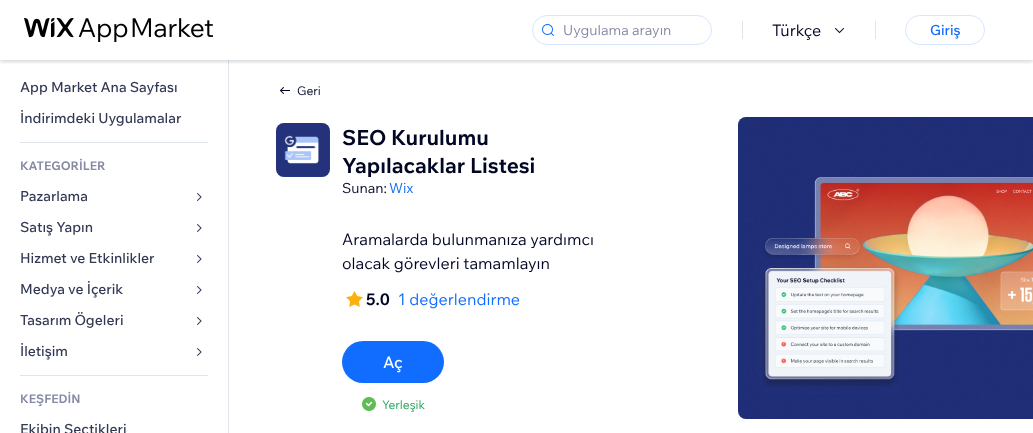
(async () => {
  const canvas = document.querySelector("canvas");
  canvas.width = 1033;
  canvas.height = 433;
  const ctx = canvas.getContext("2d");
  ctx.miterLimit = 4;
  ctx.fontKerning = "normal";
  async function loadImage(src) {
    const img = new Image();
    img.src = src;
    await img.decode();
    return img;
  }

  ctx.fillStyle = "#ffffff";
  ctx.fillRect(0, 0, 1033, 433);
  ctx.fillStyle = "#dfe5eb";
  ctx.fillRect(228, 60, 1, 373);
  ctx.save();
  ctx.beginPath();
  ctx.rect(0, 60, 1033, 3);
  ctx.clip();
  ctx.fillStyle = "rgba(22, 45, 61, 0.12)";
  ctx.filter = "blur(3px)";
  ctx.beginPath();
  ctx.rect(0, 0, 1033, 60);
  ctx.fill();
  ctx.filter = "none";
  ctx.restore();
  ctx.save();
  ctx.beginPath();
  ctx.rect(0, 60, 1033, 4);
  ctx.clip();
  ctx.fillStyle = "rgba(22, 45, 61, 0.12)";
  ctx.filter = "blur(2px)";
  ctx.beginPath();
  ctx.rect(0, 2, 1033, 60);
  ctx.fill();
  ctx.filter = "none";
  ctx.restore();
  ctx.drawImage(await loadImage("img/1.png"), 24, 18, 189, 24);
  ctx.beginPath();
  ctx.roundRect(532.5, 15.5, 179, 29, 14.5);
  ctx.strokeStyle = "#d6e6fe";
  ctx.stroke();
  ctx.drawImage(await loadImage("img/2.png"), 542, 24, 12, 12);
  ctx.fillRect(742, 21, 1, 18);
  ctx.drawImage(await loadImage("img/3.png"), 835, 28, 9, 6);
  ctx.fillRect(875, 21, 1, 18);
  ctx.beginPath();
  ctx.roundRect(905.5, 15.5, 79, 29, 14.5);
  ctx.stroke();
  ctx.fillRect(20, 142, 188, 1);
  ctx.drawImage(await loadImage("img/4.png"), 197, 193, 5, 8);
  ctx.drawImage(await loadImage("img/4.png"), 197, 224, 5, 8);
  ctx.drawImage(await loadImage("img/4.png"), 197, 255, 5, 8);
  ctx.drawImage(await loadImage("img/4.png"), 197, 286, 5, 8);
  ctx.drawImage(await loadImage("img/4.png"), 197, 317, 5, 8);
  ctx.drawImage(await loadImage("img/4.png"), 197, 348, 5, 8);
  ctx.fillRect(20, 375, 188, 1);
  ctx.drawImage(await loadImage("img/5.png"), 279, 87, 11, 7);
  ctx.beginPath();
  ctx.roundRect(276, 123, 54, 54, 8);
  ctx.fill();
  ctx.drawImage(await loadImage("img/6.png"), 276, 123, 54, 54);
  ctx.drawImage(await loadImage("img/7.png"), 346, 291, 17, 16);
  ctx.fillStyle = "#116dff";
  ctx.beginPath();
  ctx.roundRect(342, 341, 102, 42, 21);
  ctx.fill();
  ctx.drawImage(await loadImage("img/8.png"), 362, 397, 14, 14);
  ctx.fillStyle = "#dfe5eb";
  ctx.beginPath();
  ctx.roundRect(738, 117, 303, 302, 8);
  ctx.fill();
  ctx.drawImage(await loadImage("img/9.png"), 738, 117, 295, 302);
  ctx.font = "14px Wix Madefor Text";
  ctx.fillStyle = "#868aa5";
  ctx.fillText("Uygulama arayın", 563, 35);
  ctx.font = "16px Wix Madefor Text";
  ctx.fillStyle = "#000624";
  ctx.fillText("Türkçe", 772, 36);
  ctx.font = "500 14px Wix Madefor Text";
  ctx.fillStyle = "#116dff";
  ctx.fillText("Giriş", 930, 35);
  ctx.fillStyle = "#333853";
  ctx.fillText("App Market Ana Sayfası", 20, 92);
  ctx.fillText("İndirimdeki Uygulamalar", 20, 123);
  ctx.font = "bold 12px Wix Madefor Text";
  ctx.fillStyle = "#868aa5";
  ctx.fillText("KATEGORİLER", 20, 170);
  ctx.font = "500 14px Wix Madefor Text";
  ctx.fillStyle = "#333853";
  for (const [text, x, y] of [
    ["Pazarlama", 20, 201],
    ["Satış Yapın", 20, 232],
    ["Hizmet ve Etkinlikler", 20, 263],
    ["Medya ve İçerik", 20, 294],
    ["Tasarım Ögeleri", 20, 325],
    ["İletişim", 20, 356],
  ]) {
    ctx.fillText(text, x, y);
  }
  ctx.font = "bold 12px Wix Madefor Text";
  ctx.fillStyle = "#868aa5";
  ctx.fillText("KEŞFEDİN", 20, 403);
  ctx.font = "500 14px Wix Madefor Text";
  ctx.fillStyle = "#333853";
  ctx.fillText("Ekibin Seçtikleri", 20, 434);
  ctx.font = "12px Wix Madefor Text";
  ctx.fillStyle = "#000624";
  ctx.fillText("Geri", 297, 95);
  ctx.font = "bold 21px Wix Madefor Text";
  ctx.fillText("SEO Kurulumu", 342, 145);
  ctx.fillText("Yapılacaklar Listesi", 342, 173);
  ctx.font = "14px Wix Madefor Text";
  ctx.fillText("Sunan:", 342, 193);
  ctx.fillStyle = "#116dff";
  ctx.fillText("Wix", 389, 193);
  ctx.font = "16px Wix Madefor Text";
  ctx.fillStyle = "#000624";
  ctx.fillText("Aramalarda bulunmanıza yardımcı", 342, 245);
  ctx.fillText("olacak görevleri tamamlayın", 342, 269);
  ctx.font = "bold 16px Wix Madefor Text";
  ctx.fillText("5.0", 366, 305);
  ctx.font = "16px Wix Madefor Text";
  ctx.fillStyle = "#116dff";
  ctx.fillText("1 değerlendirme", 398, 305);
  ctx.font = "500 16px Wix Madefor Text";
  ctx.fillStyle = "#ffffff";
  ctx.fillText("Aç", 383, 368);
  ctx.font = "12px Wix Madefor Text";
  ctx.fillStyle = "#25a55a";
  ctx.fillText("Yerleşik", 382, 409);
})();
